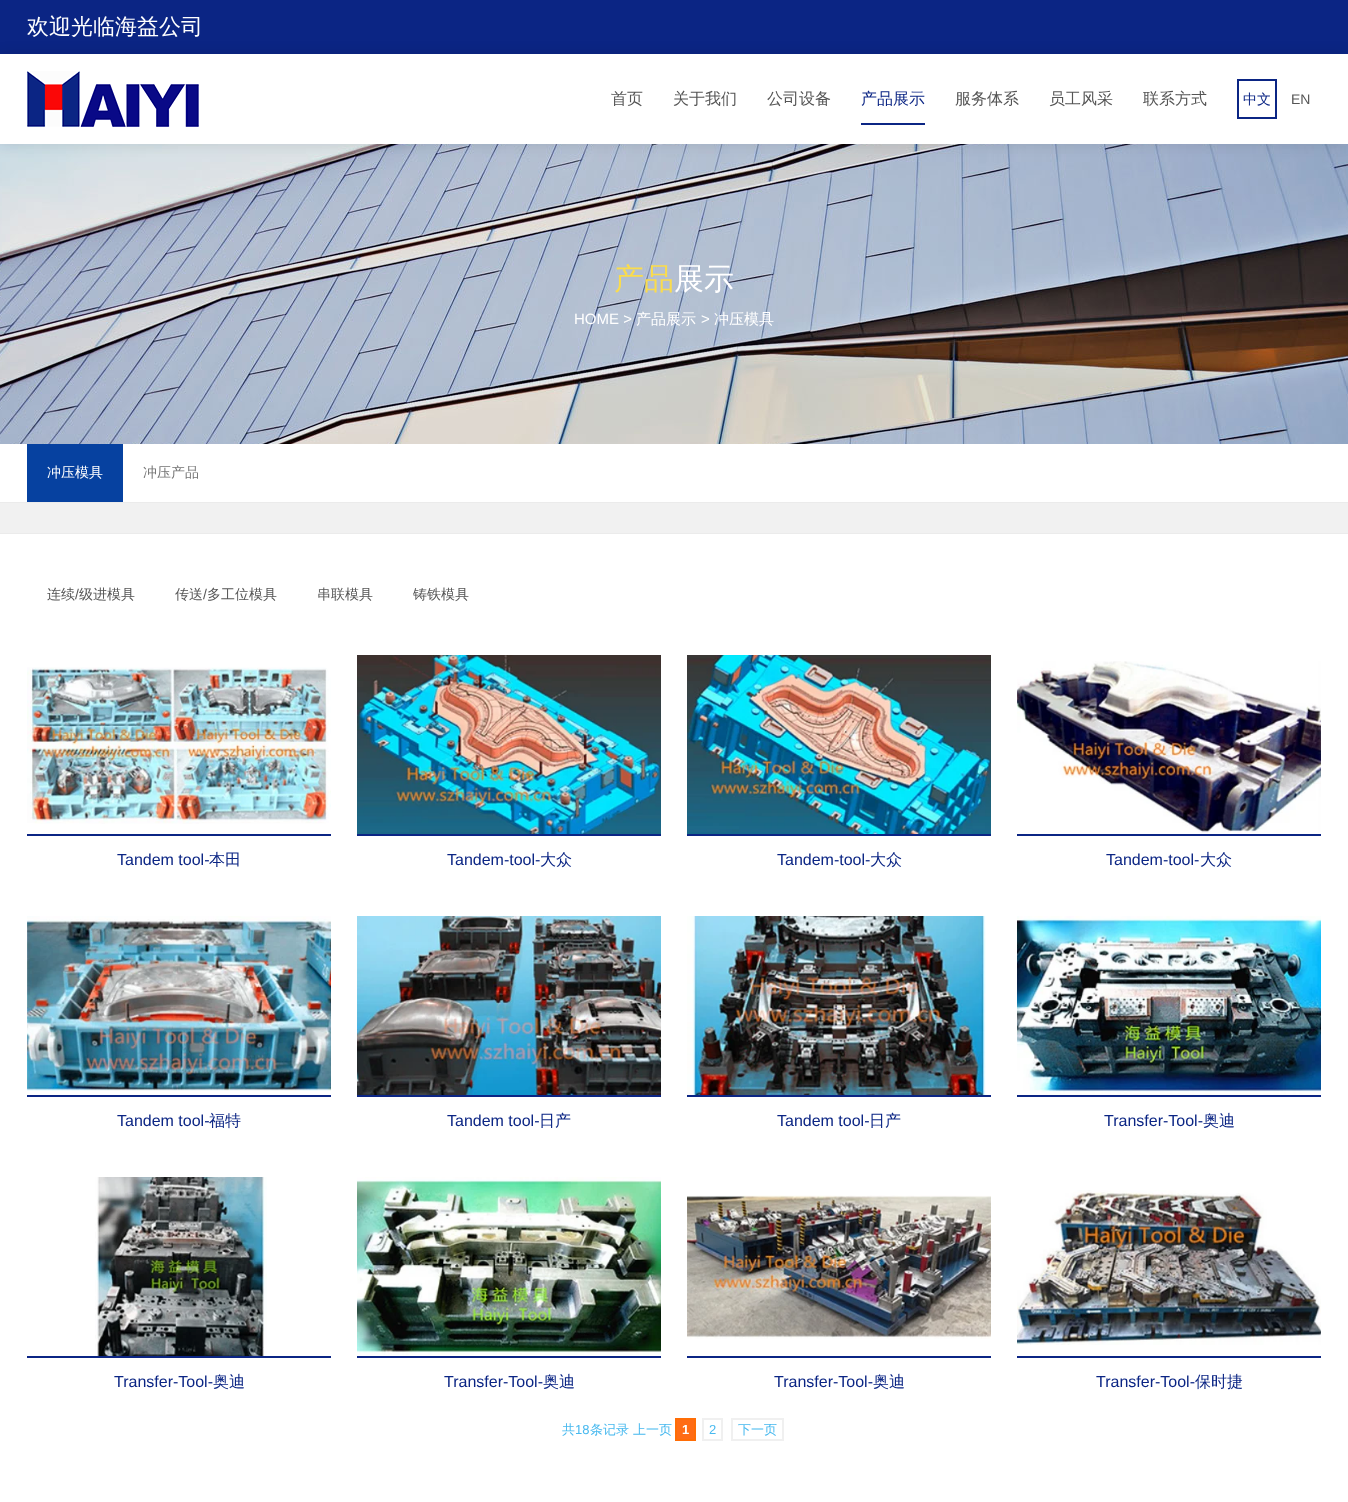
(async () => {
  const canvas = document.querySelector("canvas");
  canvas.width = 1348;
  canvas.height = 1502;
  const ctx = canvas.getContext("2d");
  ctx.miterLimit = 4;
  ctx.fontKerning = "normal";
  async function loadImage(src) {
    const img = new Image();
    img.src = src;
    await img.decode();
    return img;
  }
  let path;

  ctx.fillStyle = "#ffffff";
  ctx.fillRect(0, 0, 1348, 1502);
  ctx.fillStyle = "#0b2584";
  ctx.fillRect(0, 0, 1348, 54);
  ctx.drawImage(await loadImage("img/2.png"), 0, 144, 1348, 300);
  ctx.save();
  path = new Path2D("M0 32H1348V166H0ZM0 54H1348V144H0Z");
  ctx.clip(path, "evenodd");
  ctx.fillStyle = "rgba(0, 0, 0, 0.1)";
  ctx.filter = "blur(7px)";
  ctx.beginPath();
  ctx.rect(0, 54, 1348, 90);
  ctx.fill();
  ctx.filter = "none";
  ctx.restore();
  ctx.drawImage(await loadImage("img/1.png"), 27, 71, 172, 56);
  ctx.fillRect(861, 123, 64, 2);
  ctx.strokeStyle = "#0b2584";
  ctx.lineWidth = 2;
  ctx.strokeRect(1238, 80, 38, 38);
  for (const [x, y, w, h, color] of [
    [0, 502, 1348, 1, "#ebebeb"],
    [27, 444, 96, 58, "#0641a0"],
    [0, 503, 1348, 30, "#f1f1f1"],
    [0, 533, 1348, 1, "#ebebeb"],
  ]) {
    ctx.fillStyle = color;
    ctx.fillRect(x, y, w, h);
  }
  ctx.drawImage(await loadImage("img/3.png"), 27, 667, 304, 157);
  ctx.fillStyle = "#0b2584";
  ctx.fillRect(27, 834, 304, 2);
  ctx.drawImage(await loadImage("img/4.png"), 357, 655, 304, 179);
  ctx.fillRect(357, 834, 304, 2);
  ctx.drawImage(await loadImage("img/5.png"), 687, 655, 304, 179);
  ctx.fillRect(687, 834, 304, 2);
  ctx.drawImage(await loadImage("img/6.png"), 1017, 661, 304, 173);
  ctx.fillRect(1017, 834, 304, 2);
  ctx.drawImage(await loadImage("img/7.png"), 27, 916, 304, 175);
  ctx.fillRect(27, 1095, 304, 2);
  ctx.drawImage(await loadImage("img/8.png"), 357, 916, 304, 179);
  ctx.fillRect(357, 1095, 304, 2);
  ctx.drawImage(await loadImage("img/9.png"), 687, 916, 299, 179);
  ctx.fillRect(687, 1095, 304, 2);
  ctx.drawImage(await loadImage("img/10.png"), 1017, 916, 304, 179);
  ctx.fillRect(1017, 1095, 304, 2);
  ctx.drawImage(await loadImage("img/11.png"), 95, 1177, 172, 179);
  ctx.fillRect(27, 1356, 304, 2);
  ctx.drawImage(await loadImage("img/12.png"), 357, 1177, 304, 178);
  ctx.fillRect(357, 1356, 304, 2);
  ctx.drawImage(await loadImage("img/13.png"), 687, 1195, 304, 144);
  ctx.fillRect(687, 1356, 304, 2);
  ctx.drawImage(await loadImage("img/14.png"), 1017, 1190, 304, 155);
  ctx.fillRect(1017, 1356, 304, 2);
  ctx.fillStyle = "#ff6c16";
  ctx.beginPath();
  ctx.rect(676, 1419, 19, 21);
  ctx.fill();
  ctx.strokeStyle = "#ff6d06";
  ctx.stroke();
  ctx.strokeStyle = "#f0f0f0";
  ctx.strokeRect(703, 1419, 19, 21);
  ctx.strokeRect(732, 1419, 51, 21);
  ctx.font = "500 22px WenQuanYi Zen Hei";
  ctx.fillStyle = "#ffffff";
  ctx.fillText("欢迎光临海益公司", 27, 34);
  ctx.font = "500 16px WenQuanYi Zen Hei";
  ctx.fillStyle = "#555555";
  for (const [text, x, y] of [
    ["首页", 611, 104],
    ["关于我们", 673, 104],
    ["公司设备", 767, 104],
  ]) {
    ctx.fillText(text, x, y);
  }
  ctx.fillStyle = "#0b2584";
  ctx.fillText("产品展示", 861, 104);
  ctx.fillStyle = "#555555";
  for (const [text, x, y] of [
    ["服务体系", 955, 104],
    ["员工风采", 1049, 104],
    ["联系方式", 1143, 104],
  ]) {
    ctx.fillText(text, x, y);
  }
  ctx.font = "500 14px WenQuanYi Zen Hei";
  ctx.fillStyle = "#0b2584";
  ctx.fillText("中文", 1243, 104);
  ctx.font = "14px Liberation Sans";
  ctx.fillStyle = "#555555";
  ctx.fillText("EN", 1291, 104);
  ctx.font = "500 30px WenQuanYi Zen Hei";
  ctx.fillStyle = "#fadc4d";
  ctx.fillText("产品", 614, 289);
  ctx.fillStyle = "#ffffff";
  ctx.fillText("展示", 674, 289);
  ctx.font = "15px Liberation Sans";
  ctx.fillText("HOME >", 574, 324);
  ctx.font = "500 15px WenQuanYi Zen Hei";
  ctx.fillText("产品展示", 636, 324);
  ctx.font = "15px Liberation Sans";
  ctx.fillText(">", 701, 324);
  ctx.font = "500 15px WenQuanYi Zen Hei";
  ctx.fillText("冲压模具", 714, 324);
  ctx.font = "500 14px WenQuanYi Zen Hei";
  ctx.fillText("冲压模具", 47, 477);
  ctx.fillStyle = "#747474";
  ctx.fillText("冲压产品", 143, 477);
  ctx.fillStyle = "#555555";
  ctx.fillText("连续", 47, 599);
  ctx.font = "14px Liberation Sans";
  ctx.fillText("/", 75, 599);
  ctx.font = "500 14px WenQuanYi Zen Hei";
  ctx.fillText("级进模具", 79, 599);
  ctx.fillText("传送", 175, 599);
  ctx.font = "14px Liberation Sans";
  ctx.fillText("/", 203, 599);
  ctx.font = "500 14px WenQuanYi Zen Hei";
  for (const [text, x, y] of [
    ["多工位模具", 207, 599],
    ["串联模具", 317, 599],
    ["铸铁模具", 413, 599],
  ]) {
    ctx.fillText(text, x, y);
  }
  ctx.font = "16px Liberation Sans";
  ctx.fillStyle = "#0b2584";
  ctx.fillText("Tandem tool-", 117, 865);
  ctx.font = "500 16px WenQuanYi Zen Hei";
  ctx.fillText("本田", 209, 865);
  ctx.font = "16px Liberation Sans";
  ctx.fillText("Tandem-tool-", 447, 865);
  ctx.font = "500 16px WenQuanYi Zen Hei";
  ctx.fillText("大众", 540, 865);
  ctx.font = "16px Liberation Sans";
  ctx.fillText("Tandem-tool-", 777, 865);
  ctx.font = "500 16px WenQuanYi Zen Hei";
  ctx.fillText("大众", 870, 865);
  ctx.font = "16px Liberation Sans";
  ctx.fillText("Tandem-tool-", 1106, 865);
  ctx.font = "500 16px WenQuanYi Zen Hei";
  ctx.fillText("大众", 1200, 865);
  ctx.font = "16px Liberation Sans";
  ctx.fillText("Tandem tool-", 117, 1126);
  ctx.font = "500 16px WenQuanYi Zen Hei";
  ctx.fillText("福特", 209, 1126);
  ctx.font = "16px Liberation Sans";
  ctx.fillText("Tandem tool-", 447, 1126);
  ctx.font = "500 16px WenQuanYi Zen Hei";
  ctx.fillText("日产", 539, 1126);
  ctx.font = "16px Liberation Sans";
  ctx.fillText("Tandem tool-", 777, 1126);
  ctx.font = "500 16px WenQuanYi Zen Hei";
  ctx.fillText("日产", 869, 1126);
  ctx.font = "16px Liberation Sans";
  ctx.fillText("Transfer-Tool-", 1104, 1126);
  ctx.font = "500 16px WenQuanYi Zen Hei";
  ctx.fillText("奥迪", 1203, 1126);
  ctx.font = "16px Liberation Sans";
  ctx.fillText("Transfer-Tool-", 114, 1387);
  ctx.font = "500 16px WenQuanYi Zen Hei";
  ctx.fillText("奥迪", 213, 1387);
  ctx.font = "16px Liberation Sans";
  ctx.fillText("Transfer-Tool-", 444, 1387);
  ctx.font = "500 16px WenQuanYi Zen Hei";
  ctx.fillText("奥迪", 543, 1387);
  ctx.font = "16px Liberation Sans";
  ctx.fillText("Transfer-Tool-", 774, 1387);
  ctx.font = "500 16px WenQuanYi Zen Hei";
  ctx.fillText("奥迪", 873, 1387);
  ctx.font = "16px Liberation Sans";
  ctx.fillText("Transfer-Tool-", 1096, 1387);
  ctx.font = "500 16px WenQuanYi Zen Hei";
  ctx.fillText("保时捷", 1195, 1387);
  ctx.font = "500 13px WenQuanYi Zen Hei";
  ctx.fillStyle = "#48b9ef";
  ctx.fillText("共", 562, 1434);
  ctx.font = "13px Liberation Sans";
  ctx.fillText("18", 575, 1434);
  ctx.font = "500 13px WenQuanYi Zen Hei";
  ctx.fillText("条记录 上一页", 590, 1434);
  ctx.font = "bold 13px Liberation Sans";
  ctx.fillStyle = "#ffffff";
  ctx.fillText("1", 682, 1434);
  ctx.font = "13px Liberation Sans";
  ctx.fillStyle = "#48b9ef";
  ctx.fillText("2", 709, 1434);
  ctx.font = "500 13px WenQuanYi Zen Hei";
  ctx.fillText("下一页", 738, 1434);
})();
